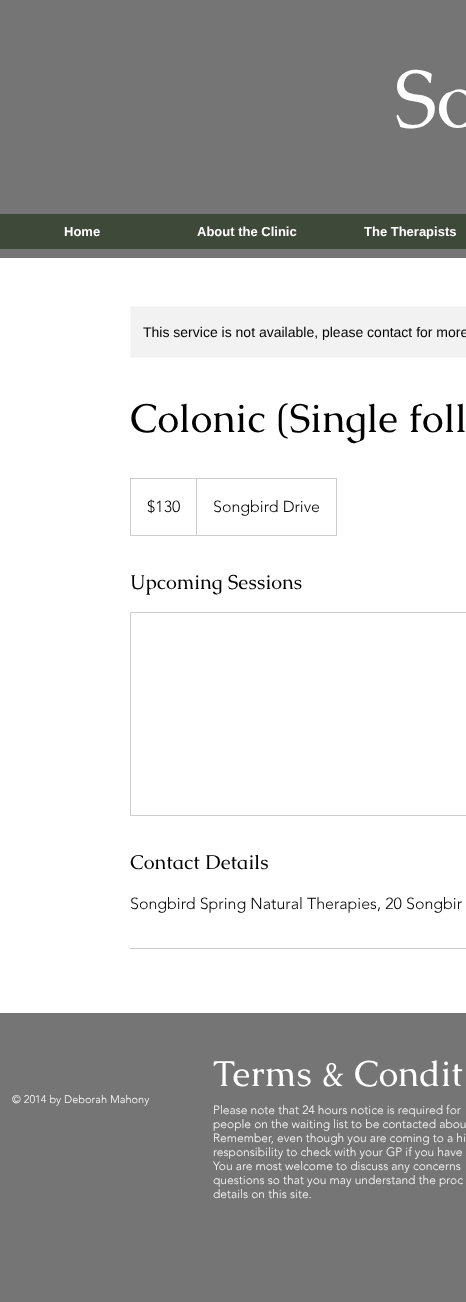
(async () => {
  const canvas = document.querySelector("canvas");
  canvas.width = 466;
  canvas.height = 1302;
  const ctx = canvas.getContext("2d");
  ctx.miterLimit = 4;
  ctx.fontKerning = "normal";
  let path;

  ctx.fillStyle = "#757575";
  ctx.fillRect(0, 0, 466, 1302);
  ctx.fillStyle = "#3f4939";
  ctx.fillRect(0, 214, 466, 35);
  ctx.fillStyle = "#ffffff";
  ctx.fillRect(0, 258, 466, 755);
  ctx.fillStyle = "#f2f2f2";
  ctx.beginPath();
  ctx.roundRect(130.5, 306.5, 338, 51, 1.5);
  ctx.fill();
  ctx.strokeStyle = "#f7f7f7";
  ctx.stroke();
  ctx.strokeStyle = "#cccccc";
  ctx.strokeRect(130.5, 478.5, 206, 57);
  ctx.fillStyle = "#cccccc";
  path = new Path2D("M196 535V478L197 479V535Z");
  ctx.fill(path);
  ctx.strokeRect(130.5, 612.5, 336, 203);
  ctx.fillRect(130, 948, 336, 1);
  ctx.font = "81px Caudex";
  ctx.fillStyle = "#ffffff";
  ctx.fillText("So", 394, 127);
  ctx.font = "bold 13px Liberation Sans";
  for (const [text, x, y] of [
    ["Home", 64, 236],
    ["About the Clinic", 197, 236],
    ["The Therapists", 364, 236],
  ]) {
    ctx.fillText(text, x, y);
  }
  ctx.font = "14px Liberation Sans";
  ctx.fillStyle = "#000000";
  ctx.fillText("This service is not available, please contact for more", 143, 337);
  ctx.font = "40px Caudex";
  ctx.fillText("Colonic (Single foll", 130, 432);
  ctx.font = "300 16px 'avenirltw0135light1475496'";
  ctx.fillText("$130", 147, 512);
  ctx.fillText("Songbird Drive", 213, 512);
  ctx.font = "20px Caudex";
  ctx.fillText("Upcoming Sessions", 130, 589);
  ctx.fillText("Contact Details", 130, 869);
  ctx.font = "300 16px 'avenirltw0135light1475496'";
  ctx.fillText("Songbird Spring Natural Therapies, 20 Songbir", 130, 909);
  ctx.font = "300 11px 'avenirltw0135light1475496'";
  ctx.fillStyle = "#ffffff";
  ctx.fillText("© 2014 by Deborah Mahony", 12, 1103);
  ctx.font = "36px Caudex";
  ctx.fillText("Terms & Condit", 213, 1086);
  ctx.font = "300 12px 'avenirltw0135light1475496'";
  for (const [text, x, y] of [
    ["Please note that 24 hours notice is required for", 213, 1114],
    ["people on the waiting list to be contacted abou", 213, 1128],
    ["Remember, even though you are coming to a hi", 213, 1142],
    ["responsibility to check with your GP if you have", 213, 1156],
    ["You are most welcome to discuss any concerns", 213, 1170],
    ["questions so that you may understand the proc", 213, 1184],
    ["details on this site.", 213, 1198],
  ]) {
    ctx.fillText(text, x, y);
  }
})();
